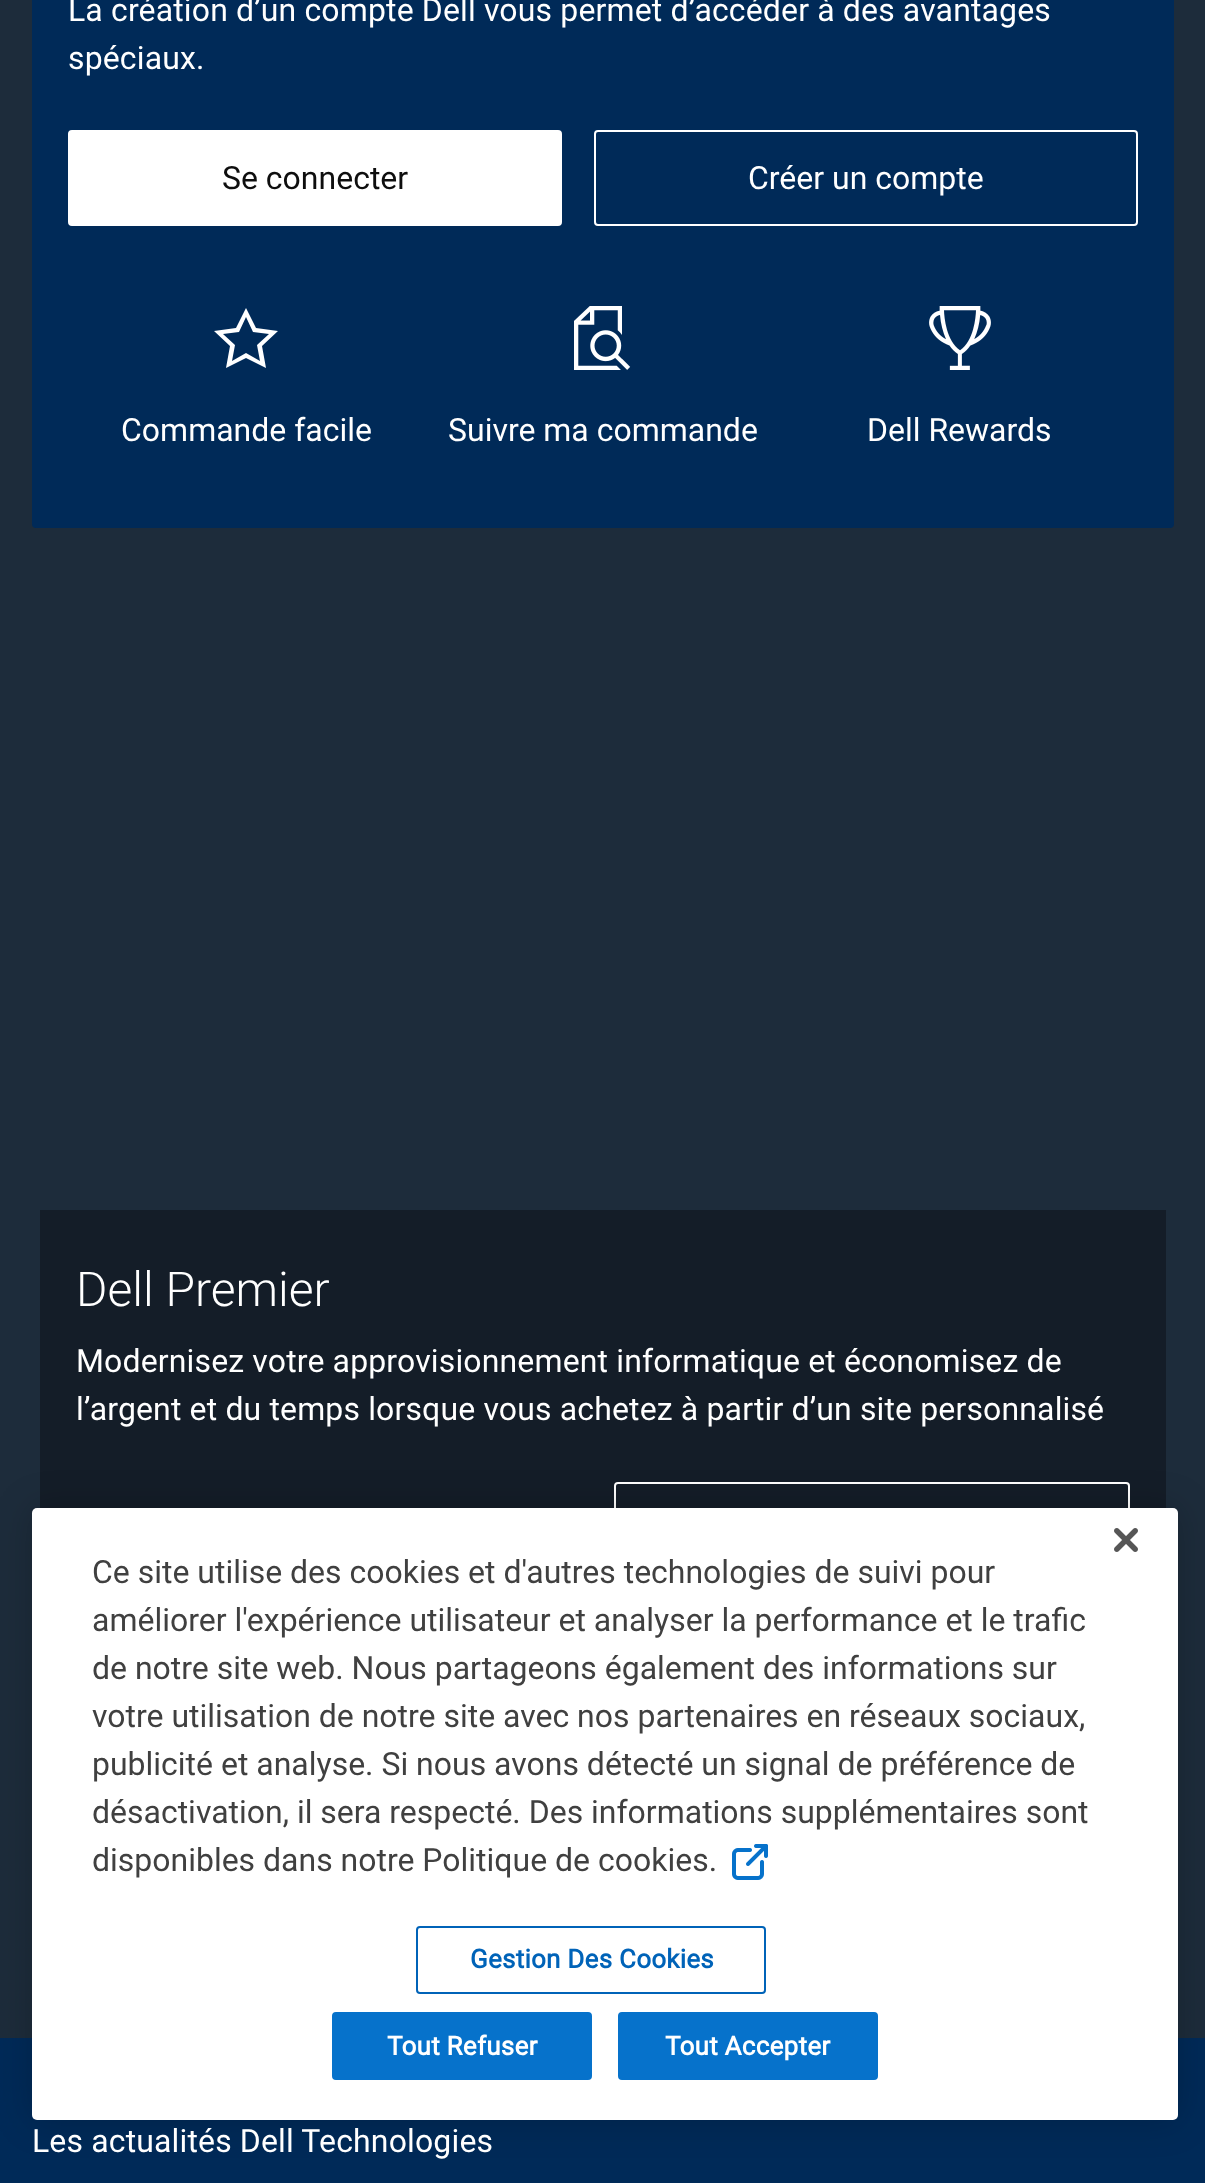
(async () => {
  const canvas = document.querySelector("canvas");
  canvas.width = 1205;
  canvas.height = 2183;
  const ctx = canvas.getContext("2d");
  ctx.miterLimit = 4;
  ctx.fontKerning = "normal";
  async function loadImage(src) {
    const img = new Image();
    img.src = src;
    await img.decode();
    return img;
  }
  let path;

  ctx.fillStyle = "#1d2c3b";
  ctx.fillRect(0, 0, 1205, 2183);
  ctx.fillStyle = "#002a58";
  ctx.beginPath();
  ctx.roundRect(32, -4, 1142, 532, 4);
  ctx.fill();
  ctx.fillStyle = "#ffffff";
  ctx.beginPath();
  ctx.roundRect(69, 131, 492, 94, 3);
  ctx.fill();
  ctx.strokeStyle = "#ffffff";
  ctx.lineWidth = 2;
  ctx.stroke();
  ctx.beginPath();
  ctx.roundRect(595, 131, 542, 94, 3);
  ctx.stroke();
  path = new Path2D("M278 331L256 328L246 308L236 328L214 331L230 346L226 368L246 358L266 368L262 346ZM246 353L232 361L235 345L223 334L239 332L246 317L253 332L269 334L257 345L260 361Z");
  ctx.fill(path);
  ctx.drawImage(await loadImage("img/1.png"), 574, 306, 57, 64);
  ctx.drawImage(await loadImage("img/2.png"), 929, 306, 62, 64);
  ctx.fillStyle = "#141d28";
  ctx.fillRect(40, 1210, 1126, 298);
  ctx.beginPath();
  ctx.roundRect(615, 1483, 514, 94, 3);
  ctx.stroke();
  ctx.fillStyle = "#002a58";
  ctx.fillRect(0, 2038, 1205, 145);
  ctx.fillStyle = "rgba(0, 0, 0, 0.2)";
  ctx.filter = "blur(18px)";
  ctx.beginPath();
  ctx.roundRect(32, 1508, 1146, 612, 5);
  ctx.fill();
  ctx.filter = "none";
  ctx.fillStyle = "#ffffff";
  ctx.beginPath();
  ctx.roundRect(32, 1508, 1146, 612, 5);
  ctx.fill();
  ctx.drawImage(await loadImage("img/3.png"), 1114, 1528, 24, 24);
  ctx.drawImage(await loadImage("img/4.png"), 732, 1844, 36, 36);
  ctx.beginPath();
  ctx.roundRect(417, 1927, 348, 66, 3);
  ctx.strokeStyle = "#0063b8";
  ctx.stroke();
  ctx.fillStyle = "#0672cb";
  ctx.beginPath();
  ctx.roundRect(333, 2013, 258, 66, 3);
  ctx.fill();
  ctx.strokeStyle = "#0672cb";
  ctx.stroke();
  ctx.beginPath();
  ctx.roundRect(619, 2013, 258, 66, 3);
  ctx.fill();
  ctx.stroke();
  ctx.letterSpacing = "0.15px";
  ctx.font = "32px Roboto";
  ctx.fillStyle = "#ffffff";
  ctx.fillText("La création d’un compte Dell vous permet d’accéder à des avantages", 68, 21);
  ctx.fillText("spéciaux.", 68, 69);
  ctx.letterSpacing = "0px";
  ctx.fillStyle = "#0e0e0e";
  ctx.fillText("Se connecter", 222, 189);
  ctx.fillStyle = "#ffffff";
  for (const [text, x, y] of [
    ["Créer un compte", 748, 189],
    ["Commande facile", 121, 441],
    ["Suivre ma commande", 448, 441],
    ["Dell Rewards", 867, 441],
  ]) {
    ctx.fillText(text, x, y);
  }
  ctx.font = "300 48px Roboto";
  ctx.fillText("Dell Premier", 76, 1306);
  ctx.letterSpacing = "0.15px";
  ctx.font = "32px Roboto";
  for (const [text, x, y] of [
    ["Modernisez votre approvisionnement informatique et économisez de", 76, 1372],
    ["l’argent et du temps lorsque vous achetez à partir d’un site personnalisé", 76, 1420],
    ["Les actualités Dell Technologies", 32, 2152],
  ]) {
    ctx.fillText(text, x, y);
  }
  ctx.letterSpacing = "0px";
  ctx.fillStyle = "#404040";
  for (const [text, x, y] of [
    ["Ce site utilise des cookies et d'autres technologies de suivi pour", 92, 1583],
    ["améliorer l'expérience utilisateur et analyser la performance et le trafic", 92, 1631],
    ["de notre site web. Nous partageons également des informations sur", 92, 1679],
    ["votre utilisation de notre site avec nos partenaires en réseaux sociaux,", 92, 1727],
    ["publicité et analyse. Si nous avons détecté un signal de préférence de", 92, 1775],
    ["désactivation, il sera respecté. Des informations supplémentaires sont", 92, 1823],
    ["disponibles dans notre Politique de cookies.", 92, 1871],
  ]) {
    ctx.fillText(text, x, y);
  }
  ctx.letterSpacing = "0.25px";
  ctx.font = "bold 26px Roboto";
  ctx.fillStyle = "#0063b8";
  ctx.fillText("Gestion Des Cookies", 470, 1968);
  ctx.fillStyle = "#ffffff";
  ctx.fillText("Tout Refuser", 387, 2055);
  ctx.fillText("Tout Accepter", 665, 2055);
})();
